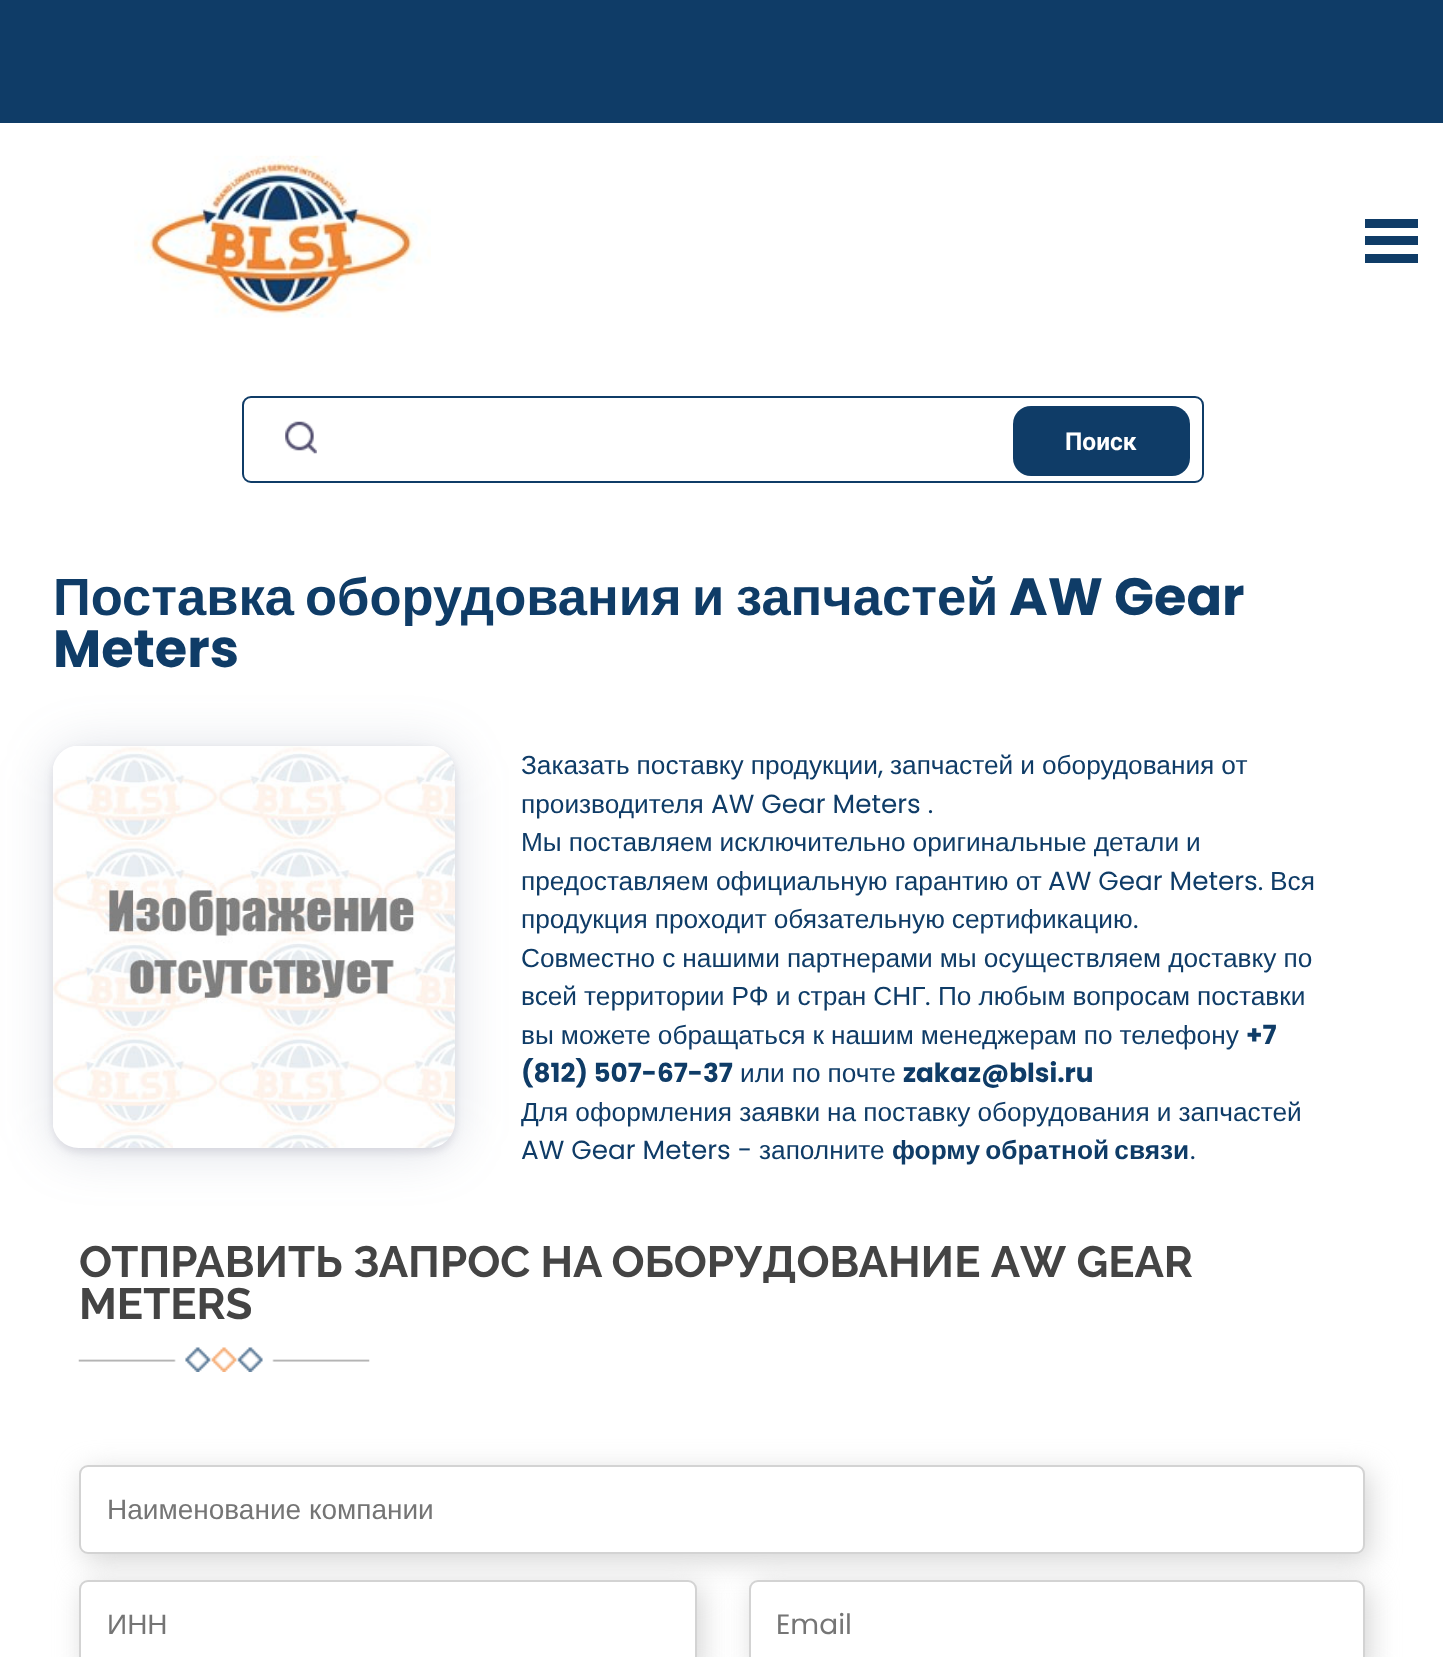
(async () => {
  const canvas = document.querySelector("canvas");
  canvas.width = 1443;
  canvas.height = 1657;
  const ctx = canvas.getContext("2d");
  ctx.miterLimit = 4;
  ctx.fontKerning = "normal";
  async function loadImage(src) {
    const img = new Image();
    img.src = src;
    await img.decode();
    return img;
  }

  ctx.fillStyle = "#ffffff";
  ctx.fillRect(0, 0, 1443, 1657);
  ctx.fillStyle = "#0f3c67";
  ctx.fillRect(0, 0, 1443, 123);
  ctx.drawImage(await loadImage("img/1.png"), 134, 155, 297, 163);
  for (const [x, y, w, h, color] of [
    [1365, 236, 53, 9, "#0f3c67"],
    [1365, 219, 53, 9, "#0f3c67"],
    [1365, 254, 53, 9, "#0f3c67"],
  ]) {
    ctx.fillStyle = color;
    ctx.fillRect(x, y, w, h);
  }
  ctx.beginPath();
  ctx.roundRect(243, 397, 960, 85, 8);
  ctx.strokeStyle = "#0f3c67";
  ctx.lineWidth = 2;
  ctx.stroke();
  ctx.drawImage(await loadImage("img/2.png"), 285, 421, 32, 33);
  ctx.beginPath();
  ctx.roundRect(1013, 406, 177, 70, 18);
  ctx.fill();
  ctx.fillStyle = "rgba(92, 103, 133, 0.2)";
  ctx.filter = "blur(26px)";
  ctx.beginPath();
  ctx.roundRect(53, 749, 402, 403, 26);
  ctx.fill();
  ctx.filter = "none";
  ctx.fillStyle = "rgba(79, 75, 108, 0.15)";
  ctx.filter = "blur(4.5px)";
  ctx.beginPath();
  ctx.roundRect(53, 749, 402, 403, 26);
  ctx.fill();
  ctx.filter = "none";
  ctx.drawImage(await loadImage("img/3.png"), 53, 746, 402, 402);
  ctx.drawImage(await loadImage("img/4.png"), 78, 1347, 292, 25);
  ctx.fillStyle = "rgba(199, 199, 199, 0.75)";
  ctx.filter = "blur(14px)";
  ctx.beginPath();
  ctx.roundRect(84, 1472, 1286, 89, 9);
  ctx.fill();
  ctx.filter = "none";
  ctx.fillStyle = "#ffffff";
  ctx.beginPath();
  ctx.roundRect(80, 1466, 1284, 87, 8);
  ctx.fill();
  ctx.strokeStyle = "#d3d3d3";
  ctx.stroke();
  ctx.fillStyle = "rgba(199, 199, 199, 0.75)";
  ctx.filter = "blur(14px)";
  ctx.beginPath();
  ctx.roundRect(84, 1587, 618, 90, 9);
  ctx.fill();
  ctx.filter = "none";
  ctx.fillStyle = "#ffffff";
  ctx.beginPath();
  ctx.roundRect(80, 1581, 616, 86, 8);
  ctx.fill();
  ctx.stroke();
  ctx.fillStyle = "rgba(199, 199, 199, 0.75)";
  ctx.filter = "blur(14px)";
  ctx.beginPath();
  ctx.roundRect(754, 1587, 616, 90, 9);
  ctx.fill();
  ctx.filter = "none";
  ctx.fillStyle = "#ffffff";
  ctx.beginPath();
  ctx.roundRect(750, 1581, 614, 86, 8);
  ctx.fill();
  ctx.stroke();
  ctx.font = "bold 24.5px Roboto";
  ctx.fillText("Поиск", 1065, 450);
  ctx.font = "bold 52.5px Liberation Sans";
  ctx.fillStyle = "#0f3c67";
  for (const [text, x, y] of [
    ["Поставка", 53, 615],
    ["оборудования", 305, 615],
    ["и", 692, 615],
    ["запчастей", 736, 615],
  ]) {
    ctx.fillText(text, x, y);
  }
  ctx.font = "bold 52.5px Poppins";
  ctx.fillText("AW Gear", 1009, 615);
  ctx.fillText("Meters", 53, 667);
  ctx.wordSpacing = "-0.25px";
  ctx.font = "26.25px Liberation Sans";
  ctx.fillText("Заказать поставку продукции", 521, 774);
  ctx.wordSpacing = "0px";
  ctx.font = "26.25px Poppins";
  ctx.fillText(",", 878, 774);
  ctx.wordSpacing = "-0.25px";
  ctx.font = "26.25px Liberation Sans";
  ctx.fillText("запчастей и оборудования от", 890, 774);
  ctx.wordSpacing = "0px";
  ctx.fillText("производителя", 521, 813);
  ctx.font = "26.25px Poppins";
  ctx.fillText("AW Gear Meters .", 711, 813);
  ctx.wordSpacing = "-0.25px";
  ctx.font = "26.25px Liberation Sans";
  ctx.fillText("Мы поставляем исключительно оригинальные детали и", 521, 851);
  ctx.wordSpacing = "0px";
  ctx.fillText("предоставляем официальную гарантию от", 521, 890);
  ctx.font = "26.25px Poppins";
  ctx.fillText("AW Gear Meters.", 1048, 890);
  ctx.font = "26.25px Liberation Sans";
  ctx.fillText("Вся", 1270, 890);
  ctx.wordSpacing = "-0.25px";
  ctx.fillText("продукция проходит обязательную сертификацию", 521, 928);
  ctx.wordSpacing = "0px";
  ctx.font = "26.25px Poppins";
  ctx.fillText(".", 1133, 928);
  ctx.wordSpacing = "-0.25px";
  ctx.font = "26.25px Liberation Sans";
  ctx.fillText("Совместно с нашими партнерами мы осуществляем доставку по", 521, 967);
  ctx.fillText("всей территории РФ и стран СНГ", 521, 1005);
  ctx.wordSpacing = "0px";
  ctx.font = "26.25px Poppins";
  ctx.fillText(".", 925, 1005);
  ctx.wordSpacing = "-0.25px";
  ctx.font = "26.25px Liberation Sans";
  ctx.fillText("По любым вопросам поставки", 938, 1005);
  ctx.fillText("вы можете обращаться к нашим менеджерам по телефону", 521, 1044);
  ctx.wordSpacing = "0px";
  ctx.font = "bold 26.25px Poppins";
  ctx.fillText("+7", 1246, 1044);
  ctx.fillText("(812) 507-67-37", 521, 1082);
  ctx.wordSpacing = "-0.25px";
  ctx.font = "26.25px Liberation Sans";
  ctx.fillText("или по почте", 740, 1082);
  ctx.wordSpacing = "0px";
  ctx.font = "bold 26.25px Poppins";
  ctx.fillText("zakaz@blsi.ru", 903, 1082);
  ctx.wordSpacing = "-0.25px";
  ctx.font = "26.25px Liberation Sans";
  ctx.fillText("Для оформления заявки на поставку оборудования и запчастей", 521, 1121);
  ctx.wordSpacing = "0px";
  ctx.font = "26.25px Poppins";
  ctx.fillText("AW Gear Meters -", 521, 1159);
  ctx.font = "26.25px Liberation Sans";
  ctx.fillText("заполните", 759, 1159);
  ctx.wordSpacing = "-2px";
  ctx.font = "bold 26.25px Liberation Sans";
  ctx.fillText("форму обратной связи", 892, 1159);
  ctx.wordSpacing = "0px";
  ctx.font = "26.25px Poppins";
  ctx.fillText(".", 1190, 1159);
  ctx.wordSpacing = "-0.25px";
  ctx.font = "bold 43.75px Raleway";
  ctx.fillStyle = "#444444";
  ctx.fillText("ОТПРАВИТЬ ЗАПРОС НА ОБОРУДОВАНИЕ AW GEAR", 79, 1277);
  ctx.wordSpacing = "0px";
  ctx.fillText("METERS", 79, 1319);
  ctx.font = "28px Liberation Sans";
  ctx.fillStyle = "#757575";
  ctx.fillText("Наименование компании", 107, 1519);
  ctx.fillText("ИНН", 107, 1634);
  ctx.font = "28px Poppins";
  ctx.fillText("Email", 776, 1634);
})();
